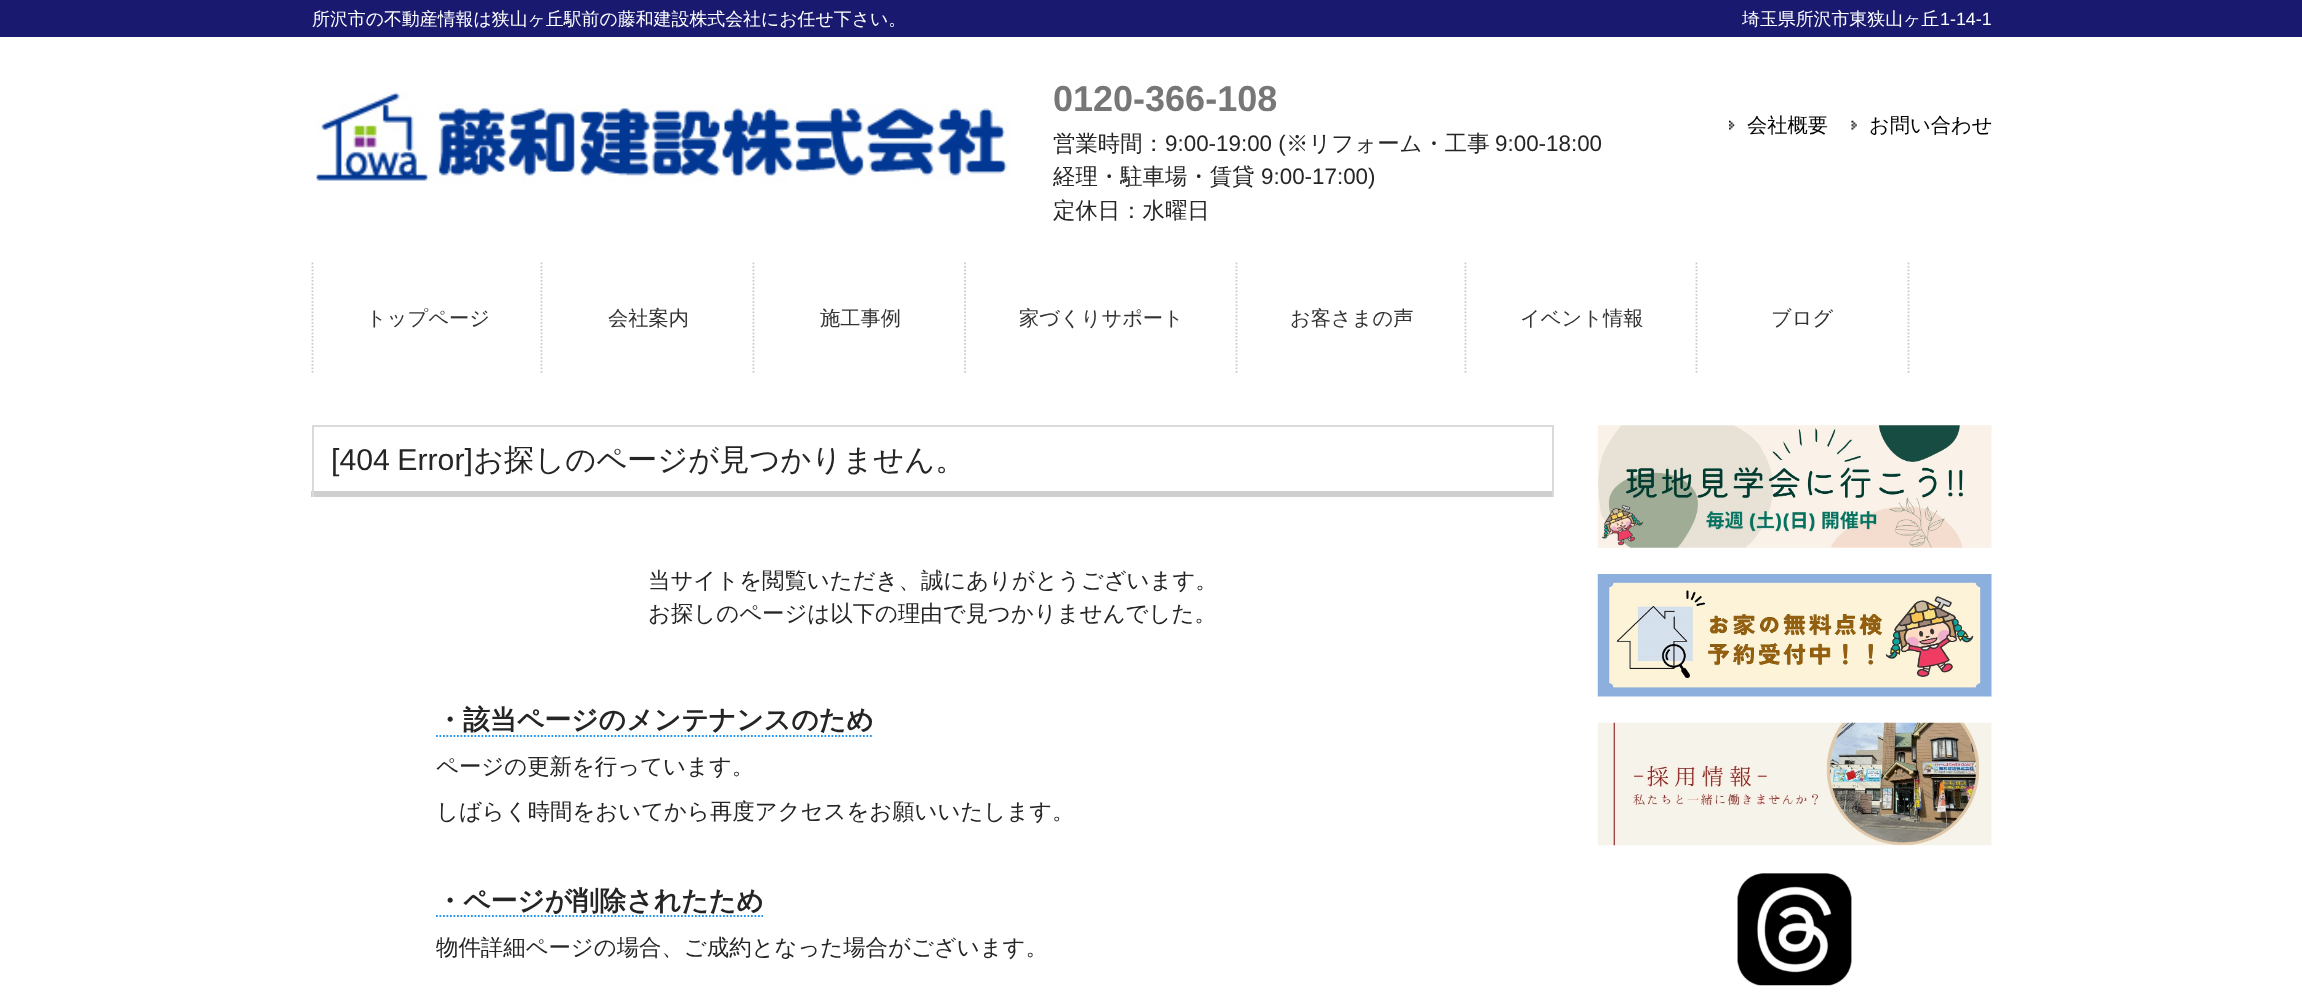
(async () => {
  const canvas = document.querySelector("canvas");
  canvas.width = 2302;
  canvas.height = 992;
  const ctx = canvas.getContext("2d");
  ctx.miterLimit = 4;
  ctx.fontKerning = "normal";
  async function loadImage(src) {
    const img = new Image();
    img.src = src;
    await img.decode();
    return img;
  }
  let path;

  ctx.fillStyle = "#ffffff";
  ctx.fillRect(0, 0, 2302, 992);
  ctx.fillStyle = "#191970";
  ctx.fillRect(0, 0, 2302, 37);
  ctx.drawImage(await loadImage("img/1.png"), 316, 92, 695, 90);
  ctx.drawImage(await loadImage("img/2.png"), 1729, 120, 6, 10);
  ctx.drawImage(await loadImage("img/3.png"), 1851, 120, 6, 10);
  path = new Path2D("M541.5 262.5V373");
  ctx.strokeStyle = "#cccccc";
  ctx.lineWidth = 1.8;
  ctx.setLineDash([1.75, 1.75]);
  ctx.stroke(path);
  path = new Path2D("M312.5 262.5V373");
  ctx.stroke(path);
  path = new Path2D("M753.5 262.5V373");
  ctx.stroke(path);
  path = new Path2D("M965 262.5V373");
  ctx.stroke(path);
  path = new Path2D("M1236.5 262.5V373");
  ctx.stroke(path);
  path = new Path2D("M1465.5 262.5V373");
  ctx.stroke(path);
  path = new Path2D("M1696.5 262.5V373");
  ctx.stroke(path);
  path = new Path2D("M1908.5 262.5V373");
  ctx.stroke(path);
  for (const [x, y, w, h, color] of [
    [311, 491, 1243, 6, "#cfcfcf"],
    [312, 425, 1242, 2, "#dadada"],
    [1552, 425, 2, 72, "#dadada"],
    [312, 425, 2, 72, "#dadada"],
  ]) {
    ctx.fillStyle = color;
    ctx.fillRect(x, y, w, h);
  }
  path = new Path2D("M436 736H873");
  ctx.strokeStyle = "#2196f3";
  ctx.stroke(path);
  path = new Path2D("M436 916H763");
  ctx.stroke(path);
  ctx.drawImage(await loadImage("img/4.png"), 1597, 425, 395, 123);
  ctx.drawImage(await loadImage("img/5.png"), 1597, 574, 395, 123);
  ctx.drawImage(await loadImage("img/6.png"), 1597, 722, 395, 124);
  ctx.drawImage(await loadImage("img/7.png"), 1737, 873, 115, 113);
  ctx.font = "500 17.9px WenQuanYi Zen Hei";
  ctx.fillStyle = "#ffffff";
  ctx.fillText("所沢市の不動産情報は狭山ヶ丘駅前の藤和建設株式会社にお任せ下さい。", 312, 25);
  ctx.fillText("埼玉県所沢市東狭山ヶ丘", 1742, 25);
  ctx.font = "17.9px Liberation Sans";
  ctx.fillText("1-14-1", 1940, 25);
  ctx.font = "bold 36px Liberation Sans";
  ctx.fillStyle = "#777777";
  ctx.fillText("0120-366-108", 1053, 111);
  ctx.font = "500 22.4px WenQuanYi Zen Hei";
  ctx.fillStyle = "#252525";
  ctx.fillText("営業時間：", 1053, 151);
  ctx.font = "22.4px Liberation Sans";
  ctx.fillText("9:00-19:00 (", 1165, 151);
  ctx.font = "500 22.4px WenQuanYi Zen Hei";
  ctx.fillText("※リフォーム・工事", 1286, 151);
  ctx.font = "22.4px Liberation Sans";
  ctx.fillText("9:00-18:00", 1495, 151);
  ctx.font = "500 22.4px WenQuanYi Zen Hei";
  ctx.fillText("経理・駐車場・賃貸", 1053, 184);
  ctx.font = "22.4px Liberation Sans";
  ctx.fillText("9:00-17:00)", 1261, 184);
  ctx.font = "500 22.4px WenQuanYi Zen Hei";
  ctx.fillText("定休日：水曜日", 1053, 218);
  ctx.font = "500 20.25px WenQuanYi Zen Hei";
  ctx.fillStyle = "#000000";
  ctx.fillText("会社概要", 1747, 132);
  ctx.fillText("お問い合わせ", 1869, 132);
  ctx.fillStyle = "#333333";
  for (const [text, x, y] of [
    ["トップページ", 366, 325],
    ["会社案内", 608, 325],
    ["施工事例", 820, 325],
    ["家づくりサポート", 1019, 325],
    ["お客さまの声", 1290, 325],
    ["イベント情報", 1520, 325],
    ["ブログ", 1771, 325],
  ]) {
    ctx.fillText(text, x, y);
  }
  ctx.wordSpacing = "-1px";
  ctx.font = "30.25px Liberation Sans";
  ctx.fillStyle = "#252525";
  ctx.fillText("[404 Error]", 331, 470);
  ctx.wordSpacing = "0px";
  ctx.font = "500 30.25px WenQuanYi Zen Hei";
  ctx.fillText("お探しのページが見つかりません。", 473, 470);
  ctx.font = "500 22.4px WenQuanYi Zen Hei";
  ctx.fillText("当サイトを閲覧いただき、誠にありがとうございます。", 648, 588);
  ctx.fillText("お探しのページは以下の理由で見つかりませんでした。", 648, 621);
  ctx.font = "bold 26.9px WenQuanYi Zen Hei";
  ctx.fillText("・該当ページのメンテナンスのため", 436, 729);
  ctx.font = "500 22.4px WenQuanYi Zen Hei";
  ctx.fillText("ページの更新を行っています。", 436, 774);
  ctx.fillText("しばらく時間をおいてから再度アクセスをお願いいたします。", 436, 819);
  ctx.font = "bold 26.9px WenQuanYi Zen Hei";
  ctx.fillText("・ページが削除されたため", 436, 910);
  ctx.font = "500 22.4px WenQuanYi Zen Hei";
  ctx.fillText("物件詳細ページの場合、ご成約となった場合がございます。", 436, 955);
})();
